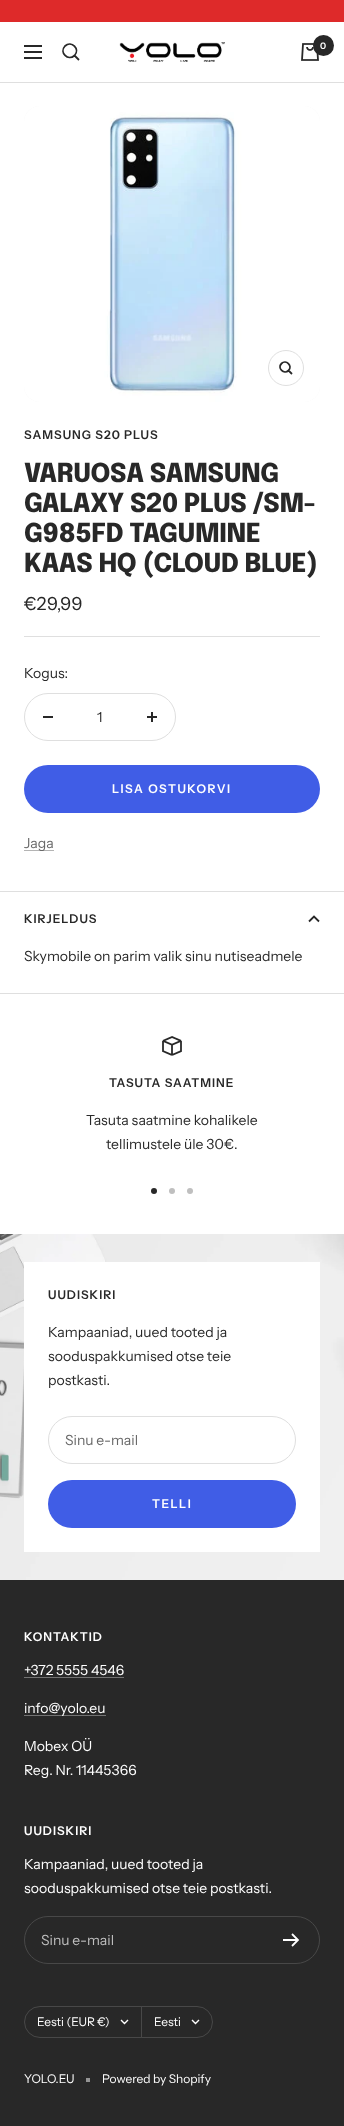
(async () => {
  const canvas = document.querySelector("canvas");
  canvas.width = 344;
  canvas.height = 2126;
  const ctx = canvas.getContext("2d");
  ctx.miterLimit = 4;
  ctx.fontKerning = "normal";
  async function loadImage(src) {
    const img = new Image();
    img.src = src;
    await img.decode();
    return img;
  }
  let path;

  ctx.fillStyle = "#ffffff";
  ctx.fillRect(0, 0, 344, 2126);
  ctx.fillStyle = "#de2a2a";
  ctx.fillRect(0, 0, 344, 22);
  ctx.fillStyle = "#dfdfdf";
  ctx.fillRect(0, 82, 344, 1);
  path = new Path2D("M24 46H42M24 58H42ZM24 52H42ZM74.5 55.5C80.5 49 71.5 40 65 46C59 52.5 68 61.5 74.5 55.5ZM74.5 55.5L79 60");
  ctx.strokeStyle = "#282828";
  ctx.lineWidth = 1.8;
  ctx.stroke(path);
  ctx.drawImage(await loadImage("img/1.png"), 119, 42, 106, 20);
  ctx.drawImage(await loadImage("img/2.png"), 301, 43, 18, 18);
  ctx.fillStyle = "#282828";
  ctx.beginPath();
  ctx.arc(323.5, 45.5, 10.5, 0, Math.PI * 2);
  ctx.fill();
  ctx.fillStyle = "#f5f5f5";
  ctx.beginPath();
  ctx.roundRect(24, 106, 296, 296, 16);
  ctx.fill();
  ctx.drawImage(await loadImage("img/3.png"), 24, 106, 296, 296);
  ctx.beginPath();
  ctx.arc(286, 368, 17.5, 0, Math.PI * 2);
  ctx.strokeStyle = "#dfdfdf";
  ctx.lineWidth = 1;
  ctx.stroke();
  path = new Path2D("M288.5 370.5C293 366 286 359 281.5 363.5C277 368 284 375 288.5 370.5ZM288.5 370.5L292 374");
  ctx.strokeStyle = "#282828";
  ctx.lineWidth = 1.8;
  ctx.stroke(path);
  ctx.fillStyle = "#dfdfdf";
  ctx.fillRect(24, 636, 296, 1);
  ctx.beginPath();
  ctx.roundRect(24.5, 693.5, 151, 47, 23.5);
  ctx.strokeStyle = "#dfdfdf";
  ctx.lineWidth = 1;
  ctx.stroke();
  ctx.fillStyle = "#282828";
  ctx.fillRect(43, 716, 10, 2);
  ctx.drawImage(await loadImage("img/4.png"), 147, 712, 10, 10);
  ctx.fillStyle = "#405de6";
  ctx.beginPath();
  ctx.roundRect(24, 765, 296, 48, 24);
  ctx.fill();
  for (const [x, y, w, h, color] of [
    [24, 850, 30, 1, "#b4b4b4"],
    [0, 891, 344, 1, "#dfdfdf"],
    [0, 993, 344, 1, "#dfdfdf"],
  ]) {
    ctx.fillStyle = color;
    ctx.fillRect(x, y, w, h);
  }
  path = new Path2D("M319 921.5L314 916.5L309 921.5");
  ctx.strokeStyle = "#282828";
  ctx.lineWidth = 1.8;
  ctx.stroke(path);
  ctx.drawImage(await loadImage("img/5.png"), 162, 1036, 20, 20);
  ctx.fillStyle = "#282828";
  ctx.beginPath();
  ctx.arc(154, 1191, 3, 0, Math.PI * 2);
  ctx.fill();
  ctx.fillStyle = "#bfbfbf";
  ctx.beginPath();
  ctx.arc(172, 1191, 3, 0, Math.PI * 2);
  ctx.fill();
  ctx.beginPath();
  ctx.arc(190, 1191, 3, 0, Math.PI * 2);
  ctx.fill();
  ctx.drawImage(await loadImage("img/6.png"), 0, 1234, 344, 346);
  ctx.fillStyle = "#ffffff";
  ctx.fillRect(24, 1262, 296, 290);
  ctx.beginPath();
  ctx.roundRect(48.5, 1416.5, 247, 47, 23.5);
  ctx.strokeStyle = "#dfdfdf";
  ctx.lineWidth = 1;
  ctx.stroke();
  ctx.fillStyle = "#405de6";
  ctx.beginPath();
  ctx.roundRect(48, 1480, 248, 48, 24);
  ctx.fill();
  for (const [x, y, w, h, color] of [
    [0, 1580, 344, 546, "#282828"],
    [24, 1677, 100, 1, "#737373"],
    [24, 1715, 82, 1, "#737373"],
  ]) {
    ctx.fillStyle = color;
    ctx.fillRect(x, y, w, h);
  }
  ctx.beginPath();
  ctx.roundRect(24.5, 1916.5, 295, 47, 23.5);
  ctx.strokeStyle = "#484848";
  ctx.stroke();
  path = new Path2D("M283 1940H298M292 1934L298 1940L292 1946");
  ctx.strokeStyle = "#ffffff";
  ctx.lineWidth = 1.8;
  ctx.stroke(path);
  ctx.beginPath();
  ctx.roundRect(24.5, 2006.5, 117, 31, [15.5, 0, 0, 15.5]);
  ctx.strokeStyle = "#484848";
  ctx.lineWidth = 1;
  ctx.stroke();
  path = new Path2D("M121 2020L124.5 2023.5L128 2020");
  ctx.strokeStyle = "#ffffff";
  ctx.lineWidth = 1.4;
  ctx.stroke(path);
  ctx.beginPath();
  ctx.roundRect(141.5, 2006.5, 71, 31, [0, 15.5, 15.5, 0]);
  ctx.strokeStyle = "#484848";
  ctx.lineWidth = 1;
  ctx.stroke();
  path = new Path2D("M192 2020L195.5 2023.5L199 2020");
  ctx.strokeStyle = "#ffffff";
  ctx.lineWidth = 1.4;
  ctx.stroke(path);
  ctx.fillStyle = "#949494";
  ctx.fillRect(86, 2078, 4, 4);
  ctx.font = "600 9px Instrument Sans";
  ctx.fillStyle = "#ffffff";
  ctx.fillText("0", 320, 49);
  ctx.letterSpacing = "1px";
  ctx.font = "600 12px Instrument Sans";
  ctx.fillStyle = "#282828";
  ctx.fillText("SAMSUNG S20 PLUS", 24, 439);
  ctx.letterSpacing = "-0.4px";
  ctx.font = "800 26px Epilogue";
  for (const [text, x, y] of [
    ["VARUOSA SAMSUNG", 24, 482],
    ["GALAXY S20 PLUS /SM-", 24, 512],
    ["G985FD TAGUMINE", 24, 542],
    ["KAAS HQ (CLOUD BLUE)", 24, 572],
  ]) {
    ctx.fillText(text, x, y);
  }
  ctx.letterSpacing = "0px";
  ctx.font = "18px Instrument Sans";
  ctx.fillText("€29,99", 24, 610);
  ctx.font = "14px Instrument Sans";
  ctx.fillText("Kogus:", 24, 678);
  ctx.fillText("1", 97, 722);
  ctx.letterSpacing = "1.5px";
  ctx.font = "600 12px Instrument Sans";
  ctx.fillStyle = "#ffffff";
  ctx.fillText("LISA OSTUKORVI", 112, 793);
  ctx.letterSpacing = "0px";
  ctx.font = "14px Instrument Sans";
  ctx.fillStyle = "#686868";
  ctx.fillText("Jaga", 24, 848);
  ctx.letterSpacing = "1px";
  ctx.font = "600 12px Instrument Sans";
  ctx.fillStyle = "#282828";
  ctx.fillText("KIRJELDUS", 24, 923);
  ctx.letterSpacing = "0px";
  ctx.font = "14px Instrument Sans";
  ctx.fillText("Skymobile on parim valik sinu nutiseadmele", 24, 961);
  ctx.letterSpacing = "1px";
  ctx.font = "600 12px Instrument Sans";
  ctx.fillText("TASUTA SAATMINE", 109, 1087);
  ctx.letterSpacing = "0px";
  ctx.font = "14px Instrument Sans";
  ctx.fillText("Tasuta saatmine kohalikele", 86, 1125);
  ctx.fillText("tellimustele üle 30€.", 106, 1149);
  ctx.letterSpacing = "1px";
  ctx.font = "600 12px Instrument Sans";
  ctx.fillText("UUDISKIRI", 48, 1299);
  ctx.letterSpacing = "0px";
  ctx.font = "14px Instrument Sans";
  for (const [text, x, y] of [
    ["Kampaaniad, uued tooted ja", 48, 1337],
    ["sooduspakkumised otse teie", 48, 1361],
    ["postkasti.", 48, 1385],
  ]) {
    ctx.fillText(text, x, y);
  }
  ctx.fillStyle = "#686868";
  ctx.fillText("Sinu e-mail", 65, 1445);
  ctx.letterSpacing = "1.5px";
  ctx.font = "600 12px Instrument Sans";
  ctx.fillStyle = "#ffffff";
  ctx.fillText("TELLI", 152, 1508);
  ctx.letterSpacing = "1px";
  ctx.fillText("KONTAKTID", 24, 1641);
  ctx.letterSpacing = "0px";
  ctx.font = "14px Instrument Sans";
  for (const [text, x, y] of [
    ["+372 5555 4546", 24, 1675],
    ["info@yolo.eu", 24, 1713],
    ["Mobex OÜ", 24, 1751],
    ["Reg. Nr. 11445366", 24, 1775],
  ]) {
    ctx.fillText(text, x, y);
  }
  ctx.letterSpacing = "1px";
  ctx.font = "600 12px Instrument Sans";
  ctx.fillText("UUDISKIRI", 24, 1835);
  ctx.letterSpacing = "0px";
  ctx.font = "14px Instrument Sans";
  ctx.fillText("Kampaaniad, uued tooted ja", 24, 1869);
  ctx.fillText("sooduspakkumised otse teie postkasti.", 24, 1893);
  ctx.fillStyle = "#bfbfbf";
  ctx.fillText("Sinu e-mail", 41, 1945);
  ctx.font = "12px Instrument Sans";
  ctx.fillStyle = "#ffffff";
  for (const [text, x, y] of [
    ["Eesti (EUR €)", 37, 2026],
    ["Eesti", 154, 2026],
    ["YOLO.EU", 24, 2083],
    ["Powered by Shopify", 102, 2083],
  ]) {
    ctx.fillText(text, x, y);
  }
})();
